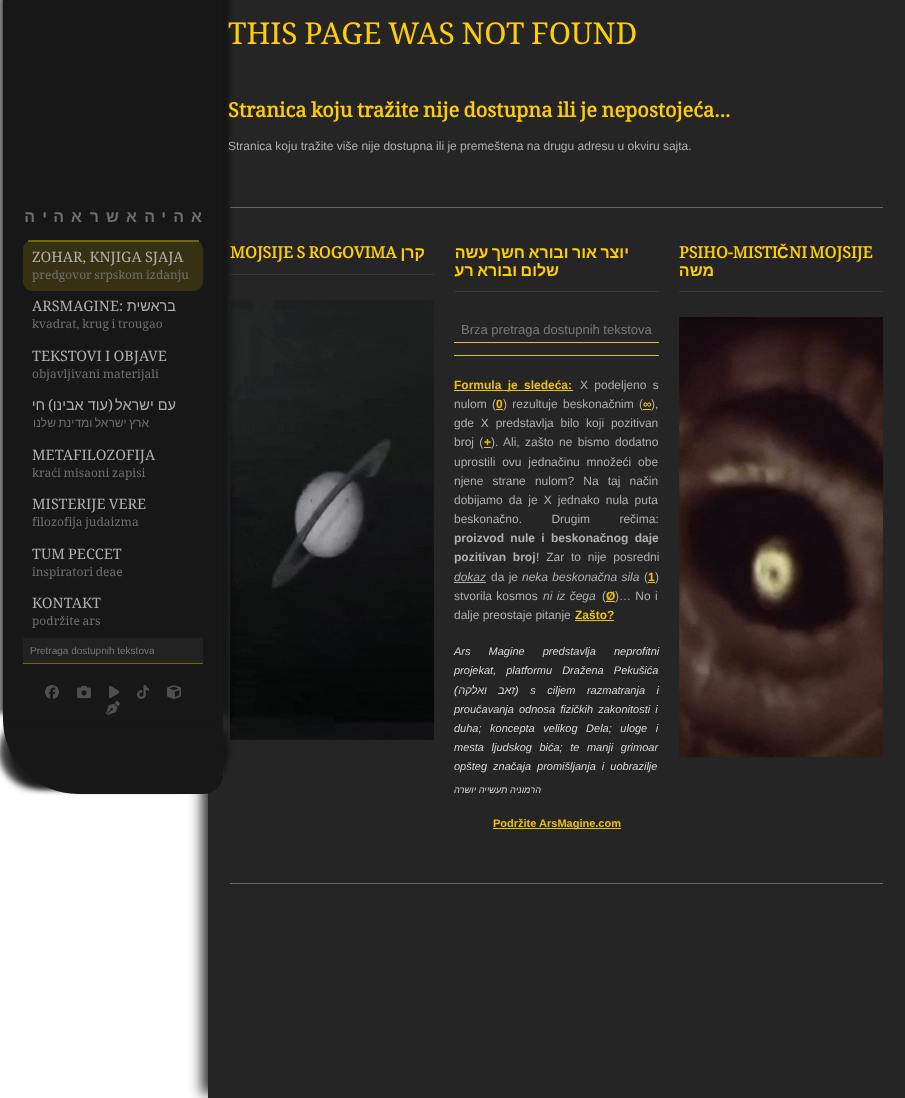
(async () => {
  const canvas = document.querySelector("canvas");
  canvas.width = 905;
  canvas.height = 1098;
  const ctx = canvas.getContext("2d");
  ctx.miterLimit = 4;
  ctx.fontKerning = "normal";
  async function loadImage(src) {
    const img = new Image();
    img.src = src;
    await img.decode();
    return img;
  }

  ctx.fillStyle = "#ffffff";
  ctx.fillRect(0, 0, 905, 1098);
  ctx.fillStyle = "rgba(5, 5, 5, 0.83)";
  ctx.filter = "blur(6.5px)";
  ctx.beginPath();
  ctx.rect(202, 4, 689, 1090);
  ctx.fill();
  ctx.filter = "none";
  ctx.fillStyle = "#252525";
  ctx.fillRect(208, 0, 697, 1098);
  ctx.fillStyle = "rgba(17, 17, 17, 0.8)";
  ctx.filter = "blur(3px)";
  ctx.beginPath();
  ctx.roundRect(-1, 714, 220, 75, 75);
  ctx.fill();
  ctx.filter = "none";
  ctx.drawImage(await loadImage("img/7.png"), 230, 300, 204, 440);
  ctx.filter = "blur(2.5px)";
  ctx.beginPath();
  ctx.roundRect(9, 714, 220, 75, 75);
  ctx.fill();
  ctx.filter = "none";
  ctx.fillStyle = "#171717";
  ctx.beginPath();
  ctx.roundRect(3, 719, 220, 75, [0, 0, 20, 75]);
  ctx.fill();
  ctx.fillStyle = "rgba(17, 17, 17, 0.8)";
  ctx.filter = "blur(3px)";
  ctx.beginPath();
  ctx.rect(-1, -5, 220, 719);
  ctx.fill();
  ctx.filter = "none";
  ctx.fillStyle = "#676767";
  ctx.fillRect(230, 207, 653, 1);
  ctx.fillStyle = "#373737";
  ctx.fillRect(230, 274, 204, 1);
  ctx.fillStyle = "rgba(17, 17, 17, 0.8)";
  ctx.filter = "blur(2.5px)";
  ctx.beginPath();
  ctx.rect(9, -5, 220, 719);
  ctx.fill();
  ctx.filter = "none";
  ctx.fillStyle = "#171717";
  ctx.fillRect(3, 0, 220, 719);
  ctx.fillStyle = "#373114";
  ctx.beginPath();
  ctx.roundRect(23, 240, 180, 51, 9);
  ctx.fill();
  for (const [x, y, w, h, color] of [
    [28, 240, 171, 2, "rgba(155, 145, 0, 0.58)"],
    [23, 638, 180, 25, "#212121"],
    [23, 663, 180, 1, "#6d690c"],
  ]) {
    ctx.fillStyle = color;
    ctx.fillRect(x, y, w, h);
  }
  ctx.drawImage(await loadImage("img/1.png"), 45, 685, 14, 14);
  ctx.drawImage(await loadImage("img/2.png"), 77, 685, 14, 14);
  ctx.drawImage(await loadImage("img/3.png"), 109, 686, 10, 12);
  ctx.drawImage(await loadImage("img/4.png"), 137, 685, 12, 14);
  ctx.drawImage(await loadImage("img/5.png"), 167, 685, 14, 14);
  ctx.drawImage(await loadImage("img/6.png"), 106, 701, 14, 14);
  for (const [x, y, w, h, color] of [
    [454, 291, 205, 1, "#373737"],
    [454, 355, 205, 1, "#e4c321"],
    [454, 342, 205, 1, "#e4c321"],
    [454, 390, 119, 1, "#eec10d"],
    [643, 409, 8, 1, "#eec10d"],
    [484, 447, 7, 1, "#eec10d"],
    [454, 582, 32, 1, "#afafae"],
    [648, 582, 7, 1, "#eec10d"],
    [606, 601, 9, 1, "#eec10d"],
    [575, 620, 39, 1, "#eec10d"],
    [493, 828, 128, 1, "#eec10d"],
    [679, 291, 204, 1, "#373737"],
  ]) {
    ctx.fillStyle = color;
    ctx.fillRect(x, y, w, h);
  }
  ctx.drawImage(await loadImage("img/8.png"), 679, 317, 204, 441);
  ctx.fillStyle = "#676767";
  ctx.fillRect(230, 883, 653, 1);
  ctx.direction = "rtl";
  ctx.font = "bold 16px Liberation Sans";
  ctx.fillStyle = "#6e6e6e";
  for (const [text, x, y] of [
    ["ה", 35, 222],
    ["י", 47, 222],
    ["ה", 64, 222],
    ["א", 82, 222],
    ["ר", 99, 222],
    ["ש", 119, 222],
    ["א", 137, 222],
    ["ה", 155, 222],
    ["י", 166, 222],
    ["ה", 184, 222],
    ["א", 202, 222],
  ]) {
    ctx.fillText(text, x, y);
  }
  ctx.direction = "ltr";
  ctx.font = "14.5px Noto Naskh Arabic";
  ctx.fillStyle = "#afafaf";
  ctx.fillText("ZOHAR, KNJIGA SJAJA", 32, 262);
  ctx.font = "12px Noto Naskh Arabic";
  ctx.fillStyle = "#6e6e6e";
  ctx.fillText("predgovor srpskom izdanju", 32, 279);
  ctx.font = "14.5px Noto Naskh Arabic";
  ctx.fillStyle = "#afafaf";
  ctx.fillText("ARSMAGINE:", 32, 311);
  ctx.direction = "rtl";
  ctx.font = "14.5px Liberation Sans";
  ctx.fillText("בראשית", 176, 311);
  ctx.direction = "ltr";
  ctx.font = "12px Noto Naskh Arabic";
  ctx.fillStyle = "#6e6e6e";
  ctx.fillText("kvadrat, krug i trougao", 32, 328);
  ctx.font = "14.5px Noto Naskh Arabic";
  ctx.fillStyle = "#afafaf";
  ctx.fillText("TEKSTOVI I OBJAVE", 32, 361);
  ctx.font = "12px Noto Naskh Arabic";
  ctx.fillStyle = "#6e6e6e";
  ctx.fillText("objavljivani materijali", 32, 378);
  ctx.direction = "rtl";
  ctx.font = "14.5px Liberation Sans";
  ctx.fillStyle = "#afafaf";
  ctx.fillText("חי", 45, 410);
  ctx.font = "14.5px Noto Naskh Arabic";
  ctx.fillText(")", 53, 410);
  ctx.font = "14.5px Liberation Sans";
  ctx.fillText("עוד אבינו", 108, 410);
  ctx.font = "14.5px Noto Naskh Arabic";
  ctx.fillText("(", 113, 410);
  ctx.font = "14.5px Liberation Sans";
  ctx.fillText("עם ישראל", 176, 410);
  ctx.wordSpacing = "-1px";
  ctx.font = "12px Liberation Sans";
  ctx.fillStyle = "#6e6e6e";
  ctx.fillText("ארץ ישראל ומדינת שלנו", 149, 427);
  ctx.wordSpacing = "0px";
  ctx.direction = "ltr";
  ctx.font = "14.5px Noto Naskh Arabic";
  ctx.fillStyle = "#afafaf";
  ctx.fillText("METAFILOZOFIJA", 32, 460);
  ctx.font = "12px Noto Naskh Arabic";
  ctx.fillStyle = "#6e6e6e";
  ctx.fillText("kraći misaoni zapisi", 32, 477);
  ctx.font = "14.5px Noto Naskh Arabic";
  ctx.fillStyle = "#afafaf";
  ctx.fillText("MISTERIJE VERE", 32, 509);
  ctx.font = "12px Noto Naskh Arabic";
  ctx.fillStyle = "#6e6e6e";
  ctx.fillText("filozofija judaizma", 32, 526);
  ctx.font = "14.5px Noto Naskh Arabic";
  ctx.fillStyle = "#afafaf";
  ctx.fillText("TUM PECCET", 32, 559);
  ctx.font = "12px Noto Naskh Arabic";
  ctx.fillStyle = "#6e6e6e";
  ctx.fillText("inspiratori deae", 32, 576);
  ctx.font = "14.5px Noto Naskh Arabic";
  ctx.fillStyle = "#afafaf";
  ctx.fillText("KONTAKT", 32, 608);
  ctx.font = "12px Noto Naskh Arabic";
  ctx.fillStyle = "#6e6e6e";
  ctx.fillText("podržite ars", 32, 625);
  ctx.font = "10px Liberation Sans";
  ctx.fillStyle = "#787878";
  ctx.fillText("Pretraga dostupnih tekstova", 30, 654);
  ctx.font = "30px Noto Naskh Arabic";
  ctx.fillStyle = "#ffcd05";
  ctx.fillText("THIS PAGE WAS NOT FOUND", 228, 44);
  ctx.font = "bold 20px Noto Naskh Arabic";
  ctx.fillText("Stranica koju tražite nije dostupna ili je nepostojeća...", 228, 117);
  ctx.font = "12px Liberation Sans";
  ctx.fillStyle = "#afafaf";
  ctx.fillText("Stranica koju tražite više nije dostupna ili je premeštena na drugu adresu u okviru sajta.", 228, 150);
  ctx.font = "bold 16px Noto Naskh Arabic";
  ctx.fillStyle = "#ffcd05";
  ctx.fillText("MOJSIJE S ROGOVIMA", 230, 258);
  ctx.direction = "rtl";
  ctx.font = "bold 16px Liberation Sans";
  ctx.fillText("קרן", 425, 258);
  ctx.wordSpacing = "-1px";
  ctx.fillText("יוצר אור ובורא חשך עשה", 629, 258);
  ctx.fillText("שלום ובורא רע", 559, 276);
  ctx.wordSpacing = "0px";
  ctx.direction = "ltr";
  ctx.font = "13px Liberation Sans";
  ctx.fillStyle = "#787878";
  ctx.fillText("Brza pretraga dostupnih tekstova", 461, 334);
  ctx.wordSpacing = "3px";
  ctx.font = "bold 12px Liberation Sans";
  ctx.fillStyle = "#eec10d";
  ctx.fillText("Formula je sledeća:", 454, 389);
  ctx.font = "12px Liberation Sans";
  ctx.fillStyle = "#afafaf";
  ctx.fillText("X podeljeno s", 580, 389);
  ctx.wordSpacing = "2px";
  ctx.fillText("nulom (", 454, 408);
  ctx.wordSpacing = "0px";
  ctx.font = "bold 12px Liberation Sans";
  ctx.fillStyle = "#eec10d";
  ctx.fillText("0", 496, 408);
  ctx.fillRect(496, 409, 7, 1);
  ctx.wordSpacing = "2px";
  ctx.font = "12px Liberation Sans";
  ctx.fillStyle = "#afafaf";
  ctx.fillText(") rezultuje beskonačnim (", 503, 408);
  ctx.wordSpacing = "0px";
  ctx.font = "bold 12px Liberation Sans";
  ctx.fillStyle = "#eec10d";
  ctx.fillText("∞", 643, 408);
  ctx.font = "12px Liberation Sans";
  ctx.fillStyle = "#afafaf";
  ctx.fillText("),", 651, 408);
  ctx.wordSpacing = "3.5px";
  ctx.fillText("gde X predstavlja bilo koji pozitivan", 454, 427);
  ctx.wordSpacing = "2px";
  ctx.fillText("broj (", 454, 446);
  ctx.wordSpacing = "0px";
  ctx.font = "bold 12px Liberation Sans";
  ctx.fillStyle = "#eec10d";
  ctx.fillText("+", 484, 446);
  ctx.wordSpacing = "2px";
  ctx.font = "12px Liberation Sans";
  ctx.fillStyle = "#afafaf";
  ctx.fillText("). Ali, zašto ne bismo dodatno", 491, 446);
  ctx.wordSpacing = "3.5px";
  ctx.fillText("uprostili ovu jednačinu množeći obe", 454, 466);
  ctx.wordSpacing = "5.75px";
  ctx.fillText("njene strane nulom? Na taj način", 454, 485);
  ctx.wordSpacing = "2.75px";
  ctx.fillText("dobijamo da je X jednako nula puta", 454, 504);
  ctx.wordSpacing = "26px";
  ctx.fillText("beskonačno. Drugim rečima:", 454, 523);
  ctx.wordSpacing = "3px";
  ctx.font = "bold 12px Liberation Sans";
  ctx.fillText("proizvod nule i beskonačnog daje", 454, 542);
  ctx.wordSpacing = "3.5px";
  ctx.fillText("pozitivan broj", 454, 561);
  ctx.font = "12px Liberation Sans";
  ctx.fillText("! Zar to nije posredni", 536, 561);
  ctx.wordSpacing = "0px";
  ctx.font = "italic 12px Liberation Sans";
  ctx.fillText("dokaz", 454, 581);
  ctx.wordSpacing = "1px";
  ctx.font = "12px Liberation Sans";
  ctx.fillText("da je", 491, 581);
  ctx.font = "italic 12px Liberation Sans";
  ctx.fillText("neka beskonačna sila", 522, 581);
  ctx.wordSpacing = "0px";
  ctx.font = "12px Liberation Sans";
  ctx.fillText("(", 644, 581);
  ctx.font = "bold 12px Liberation Sans";
  ctx.fillStyle = "#eec10d";
  ctx.fillText("1", 648, 581);
  ctx.font = "12px Liberation Sans";
  ctx.fillStyle = "#afafaf";
  ctx.fillText(")", 655, 581);
  ctx.wordSpacing = "1px";
  ctx.fillText("stvorila kosmos", 454, 600);
  ctx.font = "italic 12px Liberation Sans";
  ctx.fillText("ni iz čega", 543, 600);
  ctx.wordSpacing = "0px";
  ctx.font = "12px Liberation Sans";
  ctx.fillText("(", 602, 600);
  ctx.font = "bold 12px Liberation Sans";
  ctx.fillStyle = "#eec10d";
  ctx.fillText("Ø", 606, 600);
  ctx.wordSpacing = "1px";
  ctx.font = "12px Liberation Sans";
  ctx.fillStyle = "#afafaf";
  ctx.fillText(")… No i", 615, 600);
  ctx.wordSpacing = "0px";
  ctx.fillText("dalje preostaje pitanje", 454, 619);
  ctx.font = "bold 12px Liberation Sans";
  ctx.fillStyle = "#eec10d";
  ctx.fillText("Zašto?", 575, 619);
  ctx.wordSpacing = "15px";
  ctx.font = "italic 11px Liberation Sans";
  ctx.fillStyle = "#d7d7d7";
  ctx.fillText("Ars Magine predstavlja neprofitni", 454, 655);
  ctx.wordSpacing = "7px";
  ctx.fillText("projekat, platformu Dražena Pekušića", 454, 674);
  ctx.wordSpacing = "0px";
  ctx.fillText("(", 454, 694);
  ctx.wordSpacing = "8px";
  ctx.direction = "rtl";
  ctx.fillText("זאב ואלקה", 515, 694);
  ctx.wordSpacing = "8.5px";
  ctx.direction = "ltr";
  ctx.fillText(") s ciljem razmatranja i", 515, 694);
  ctx.wordSpacing = "2px";
  ctx.fillText("proučavanja odnosa fizičkih zakonitosti i", 454, 713);
  ctx.wordSpacing = "5.5px";
  ctx.fillText("duha; koncepta velikog Dela; uloge i", 454, 732);
  ctx.wordSpacing = "4.5px";
  ctx.fillText("mesta ljudskog bića; te manji grimoar", 454, 751);
  ctx.wordSpacing = "3px";
  ctx.fillText("opšteg značaja promišljanja i uobrazilje", 454, 770);
  ctx.wordSpacing = "0px";
  ctx.direction = "rtl";
  ctx.font = "italic 9.25px Liberation Sans";
  ctx.fillText("הרמוניה תעשייה יושרה", 541, 793);
  ctx.direction = "ltr";
  ctx.font = "bold 11px Liberation Sans";
  ctx.fillStyle = "#eec10d";
  ctx.fillText("Podržite ArsMagine.com", 493, 827);
  ctx.font = "bold 16px Noto Naskh Arabic";
  ctx.fillStyle = "#ffcd05";
  ctx.fillText("PSIHO-MISTI", 679, 258);
  ctx.font = "bold 16px Liberation Sans";
  ctx.fillText("Č", 777, 258);
  ctx.wordSpacing = "-1px";
  ctx.font = "bold 16px Noto Naskh Arabic";
  ctx.fillText("NI MOJSIJE", 789, 258);
  ctx.wordSpacing = "0px";
  ctx.direction = "rtl";
  ctx.font = "bold 16px Liberation Sans";
  ctx.fillText("משה", 714, 276);
})();
